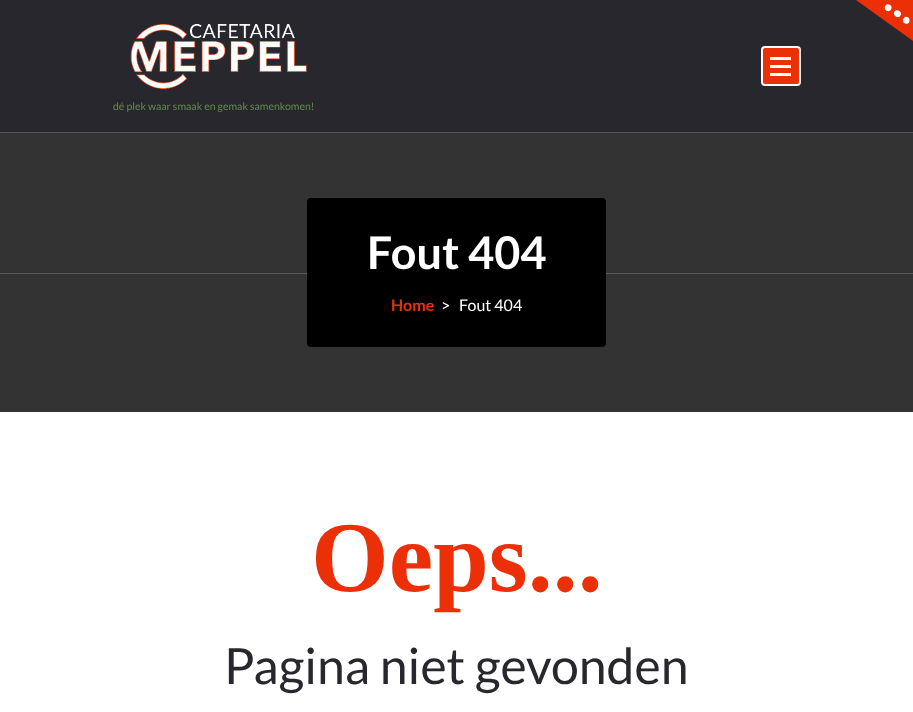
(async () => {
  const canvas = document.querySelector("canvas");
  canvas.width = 913;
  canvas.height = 712;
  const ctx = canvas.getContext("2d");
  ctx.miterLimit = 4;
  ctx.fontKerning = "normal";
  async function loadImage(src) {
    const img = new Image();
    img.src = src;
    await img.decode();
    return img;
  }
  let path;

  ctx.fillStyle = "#ffffff";
  ctx.fillRect(0, 0, 913, 712);
  ctx.fillStyle = "#29272e";
  ctx.fillRect(0, 0, 913, 132);
  ctx.fillStyle = "#51565d";
  ctx.fillRect(0, 132, 913, 1);
  ctx.fillStyle = "#eb3007";
  path = new Path2D("M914-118L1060-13L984 92L838-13Z");
  ctx.fill(path);
  path = new Path2D("M871 10L886-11L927 18L912 39Z");
  ctx.fill(path);
  ctx.fillStyle = "#ffffff";
  path = new Path2D("M894.5 11.5C897 8 903 12 900.5 15.5C898 19.5 892 15 894.5 11.5ZM885.5 5.5C888 2 893.5 6 891 9.5C888.5 13.5 882.5 9.5 885.5 5.5ZM903.5 18.5C906 14.5 911.5 18.5 909 22.5C906.5 26 901 22 903.5 18.5Z");
  ctx.fill(path);
  ctx.fillStyle = "#eb3007";
  ctx.beginPath();
  ctx.roundRect(762, 47, 38, 38, 3);
  ctx.fill();
  ctx.strokeStyle = "#fff9f7";
  ctx.lineWidth = 2;
  ctx.stroke();
  for (const [x, y, w, h, color] of [
    [770, 57, 21, 3, "#ffffff"],
    [770, 65, 21, 3, "#ffffff"],
    [770, 73, 21, 3, "#ffffff"],
  ]) {
    ctx.fillStyle = color;
    ctx.fillRect(x, y, w, h);
  }
  ctx.drawImage(await loadImage("img/1.png"), 130, 24, 177, 66);
  ctx.fillStyle = "#333333";
  ctx.fillRect(0, 133, 913, 279);
  ctx.fillStyle = "#555b5f";
  ctx.fillRect(0, 273, 913, 1);
  ctx.fillStyle = "#000000";
  ctx.beginPath();
  ctx.roundRect(307, 198, 299, 149, 4);
  ctx.fill();
  ctx.font = "10.5px Lato";
  ctx.fillStyle = "#5f8c4f";
  ctx.fillText("dé plek waar smaak en gemak samenkomen!", 113, 110);
  ctx.font = "bold 45px Lato";
  ctx.fillStyle = "#ffffff";
  ctx.fillText("Fout 404", 367, 269);
  ctx.font = "bold 16px Lato";
  ctx.fillStyle = "#eb3007";
  ctx.fillText("Home", 391, 311);
  ctx.font = "16px Lato";
  ctx.fillStyle = "#ffffff";
  ctx.fillText(">", 441, 311);
  ctx.fillText("Fout 404", 459, 311);
  ctx.font = "bold 100px Liberation Serif";
  ctx.fillStyle = "#eb3007";
  ctx.fillText("Oeps...", 311, 591);
  ctx.font = "50px Lato";
  ctx.fillStyle = "#29272e";
  ctx.fillText("Pagina niet gevonden", 224, 684);
})();
